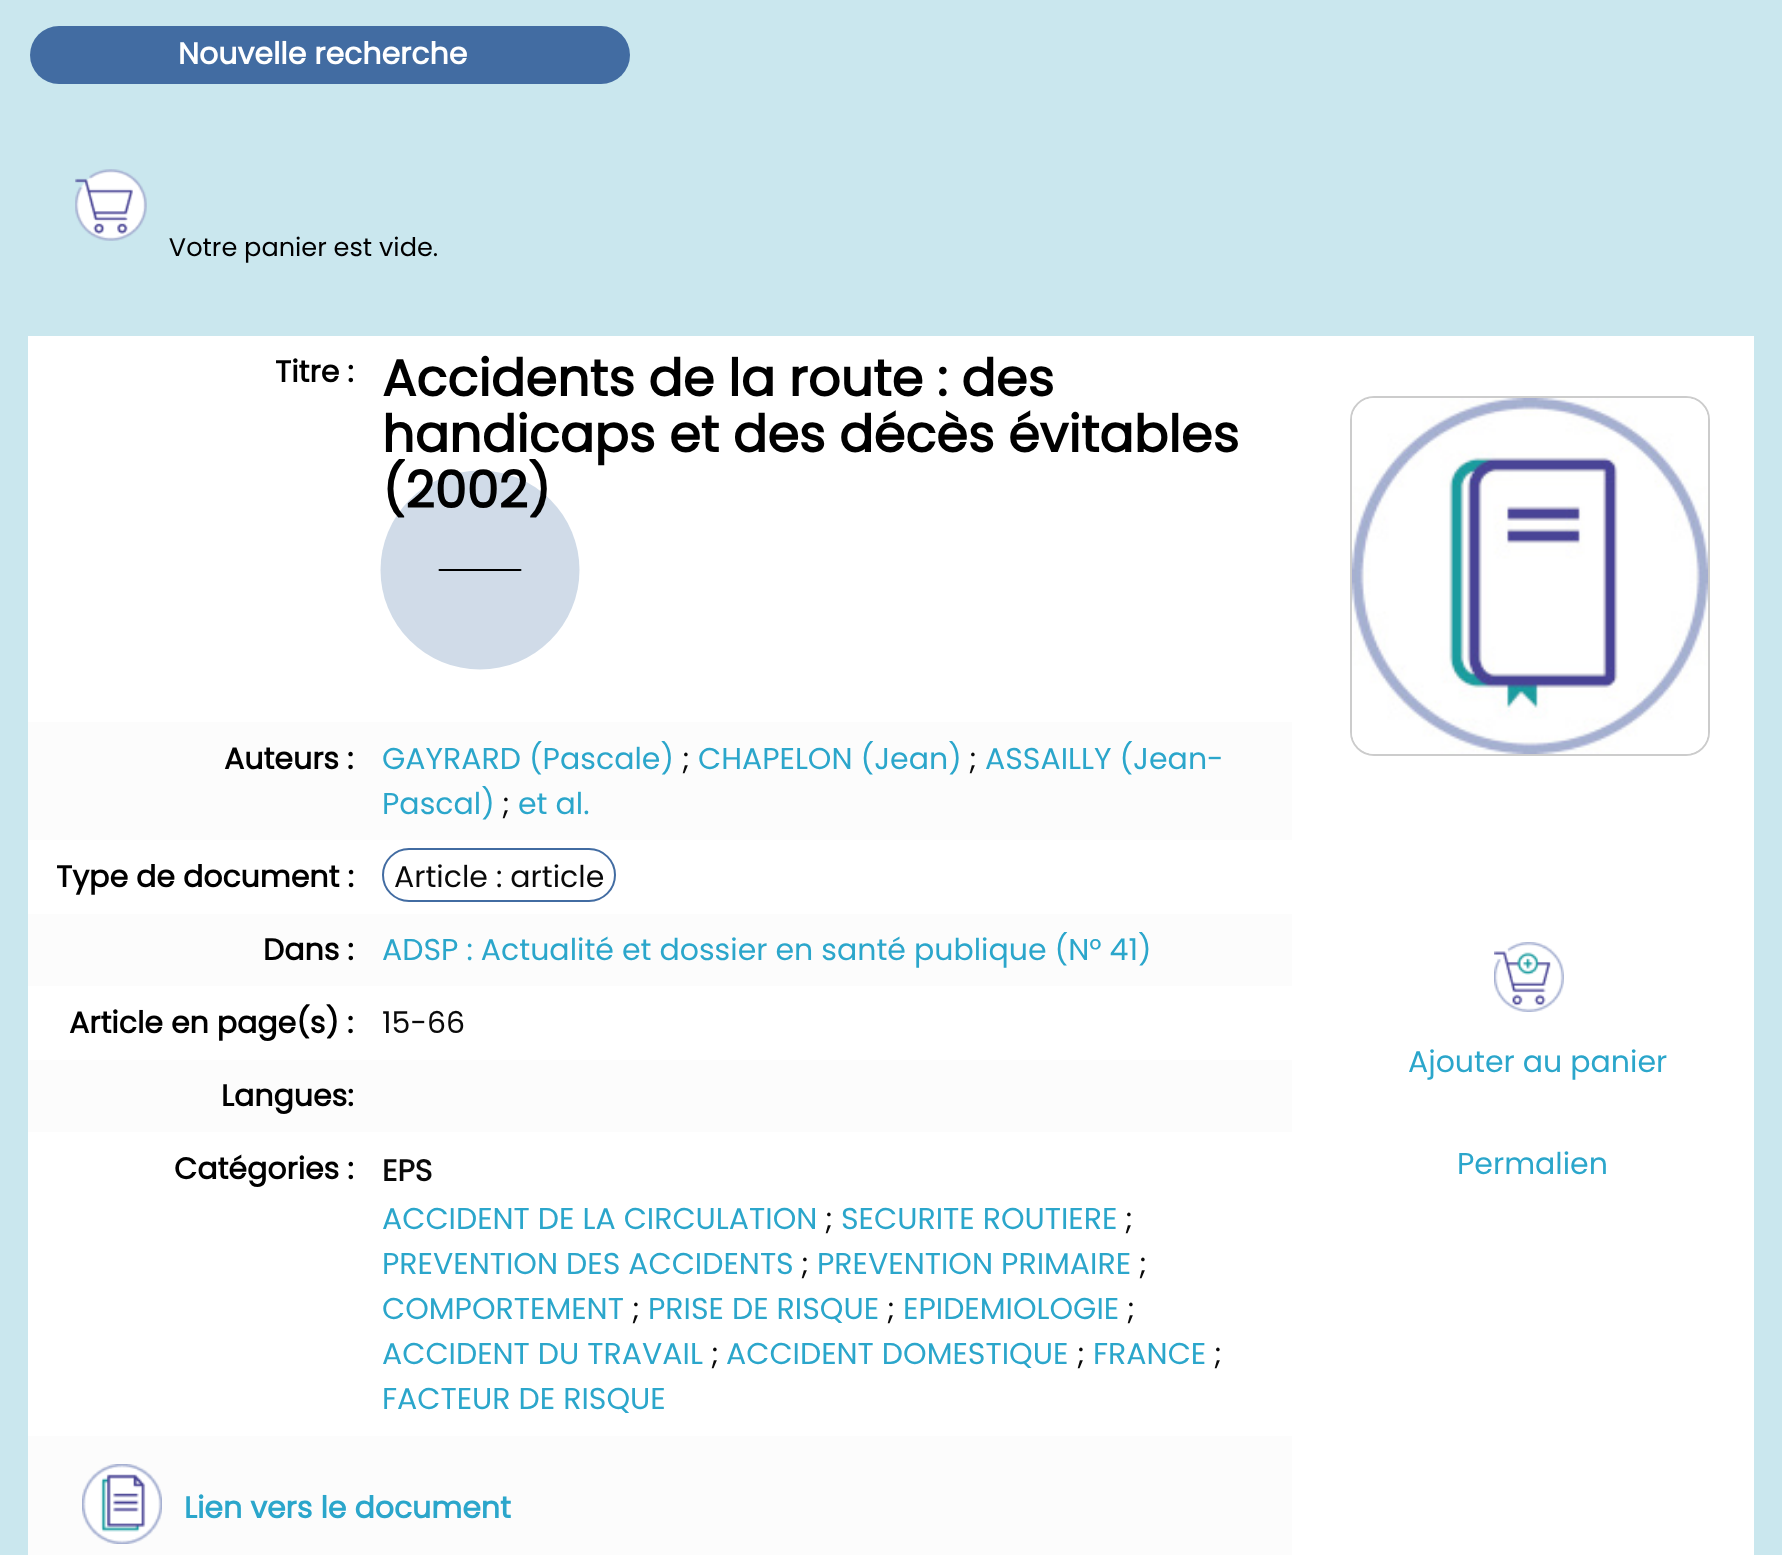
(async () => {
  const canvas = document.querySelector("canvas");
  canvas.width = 1782;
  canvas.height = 1555;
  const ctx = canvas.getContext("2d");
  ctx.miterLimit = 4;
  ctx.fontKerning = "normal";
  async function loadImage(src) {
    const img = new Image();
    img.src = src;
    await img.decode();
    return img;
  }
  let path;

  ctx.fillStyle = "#cae7ee";
  ctx.fillRect(0, 0, 1782, 1555);
  ctx.fillStyle = "#426ca2";
  ctx.beginPath();
  ctx.roundRect(30, 26, 600, 58, 29);
  ctx.fill();
  ctx.drawImage(await loadImage("img/1.png"), 75, 169, 362, 94);
  ctx.fillStyle = "#ffffff";
  ctx.fillRect(28, 336, 1726, 1219);
  ctx.fillStyle = "#d0dbe8";
  ctx.beginPath();
  ctx.arc(480, 570, 99.5, 0, Math.PI * 2);
  ctx.fill();
  path = new Path2D("M439.5 570H520.5");
  ctx.strokeStyle = "#000000";
  ctx.lineWidth = 2;
  ctx.lineCap = "round";
  ctx.stroke(path);
  ctx.fillStyle = "#fcfcfc";
  ctx.fillRect(28, 722, 1264, 118);
  ctx.beginPath();
  ctx.roundRect(383, 849, 232, 52, 26);
  ctx.strokeStyle = "#426ca2";
  ctx.stroke();
  for (const [x, y, w, h, color] of [
    [28, 914, 1264, 72, "#fcfcfc"],
    [28, 1060, 1264, 72, "#fcfcfc"],
    [28, 1436, 1264, 119, "#fcfcfc"],
  ]) {
    ctx.fillStyle = color;
    ctx.fillRect(x, y, w, h);
  }
  ctx.drawImage(await loadImage("img/2.png"), 82, 1464, 80, 80);
  ctx.beginPath();
  ctx.roundRect(1351, 397, 358, 358, 23);
  ctx.strokeStyle = "#cccccc";
  ctx.stroke();
  ctx.drawImage(await loadImage("img/3.png"), 1352, 398, 356, 356);
  ctx.drawImage(await loadImage("img/4.png"), 1494, 942, 70, 70);
  ctx.font = "bold 30px Poppins";
  ctx.fillStyle = "#ffffff";
  ctx.fillText("Nouvelle recherche", 178, 64);
  ctx.fillStyle = "#000000";
  ctx.fillText("Titre :", 275, 382);
  ctx.font = "bold 51px Poppins";
  for (const [text, x, y] of [
    ["Accidents de la route : des", 382, 396],
    ["handicaps et des décès évitables", 382, 452],
    ["(2002)", 382, 508],
  ]) {
    ctx.fillText(text, x, y);
  }
  ctx.font = "bold 30px Poppins";
  ctx.fillText("Auteurs :", 224, 769);
  ctx.font = "30px Poppins";
  ctx.fillStyle = "#2ba6cb";
  ctx.fillText("GAYRARD (Pascale)", 382, 769);
  ctx.fillStyle = "#0a0a0a";
  ctx.fillText(";", 682, 769);
  ctx.fillStyle = "#2ba6cb";
  ctx.fillText("CHAPELON (Jean)", 698, 769);
  ctx.fillStyle = "#0a0a0a";
  ctx.fillText(";", 969, 769);
  ctx.fillStyle = "#2ba6cb";
  ctx.fillText("ASSAILLY (Jean-", 985, 769);
  ctx.fillText("Pascal)", 382, 814);
  ctx.fillStyle = "#0a0a0a";
  ctx.fillText(";", 502, 814);
  ctx.fillStyle = "#2ba6cb";
  ctx.fillText("et al.", 518, 814);
  ctx.font = "bold 30px Poppins";
  ctx.fillStyle = "#000000";
  ctx.fillText("Type de document :", 56, 887);
  ctx.font = "30px Poppins";
  ctx.fillStyle = "#0a0a0a";
  ctx.fillText("Article : article", 394, 887);
  ctx.font = "bold 30px Poppins";
  ctx.fillStyle = "#000000";
  ctx.fillText("Dans :", 263, 960);
  ctx.font = "30px Poppins";
  ctx.fillStyle = "#2ba6cb";
  ctx.fillText("ADSP : Actualité et dossier en santé publique (N° 41)", 382, 960);
  ctx.font = "bold 30px Poppins";
  ctx.fillStyle = "#000000";
  ctx.fillText("Article en page(s) :", 69, 1033);
  ctx.font = "30px Poppins";
  ctx.fillStyle = "#0a0a0a";
  ctx.fillText("15-66", 382, 1033);
  ctx.font = "bold 30px Poppins";
  ctx.fillStyle = "#000000";
  ctx.fillText("Langues:", 221, 1106);
  ctx.fillText("Catégories :", 174, 1179);
  ctx.fillStyle = "#0a0a0a";
  ctx.fillText("EPS", 382, 1181);
  ctx.font = "30px Poppins";
  ctx.fillStyle = "#2ba6cb";
  ctx.fillText("ACCIDENT DE LA CIRCULATION", 382, 1229);
  ctx.fillStyle = "#0a0a0a";
  ctx.fillText(";", 825, 1229);
  ctx.fillStyle = "#2ba6cb";
  ctx.fillText("SECURITE ROUTIERE", 841, 1229);
  ctx.fillStyle = "#0a0a0a";
  ctx.fillText(";", 1125, 1229);
  ctx.fillStyle = "#2ba6cb";
  ctx.fillText("PREVENTION DES ACCIDENTS", 382, 1274);
  ctx.fillStyle = "#0a0a0a";
  ctx.fillText(";", 801, 1274);
  ctx.fillStyle = "#2ba6cb";
  ctx.fillText("PREVENTION PRIMAIRE", 817, 1274);
  ctx.fillStyle = "#0a0a0a";
  ctx.fillText(";", 1139, 1274);
  ctx.fillStyle = "#2ba6cb";
  ctx.fillText("COMPORTEMENT", 382, 1319);
  ctx.fillStyle = "#0a0a0a";
  ctx.fillText(";", 632, 1319);
  ctx.fillStyle = "#2ba6cb";
  ctx.fillText("PRISE DE RISQUE", 648, 1319);
  ctx.fillStyle = "#0a0a0a";
  ctx.fillText(";", 887, 1319);
  ctx.fillStyle = "#2ba6cb";
  ctx.fillText("EPIDEMIOLOGIE", 903, 1319);
  ctx.fillStyle = "#0a0a0a";
  ctx.fillText(";", 1127, 1319);
  ctx.fillStyle = "#2ba6cb";
  ctx.fillText("ACCIDENT DU TRAVAIL", 382, 1364);
  ctx.fillStyle = "#0a0a0a";
  ctx.fillText(";", 711, 1364);
  ctx.fillStyle = "#2ba6cb";
  ctx.fillText("ACCIDENT DOMESTIQUE", 726, 1364);
  ctx.fillStyle = "#0a0a0a";
  ctx.fillText(";", 1077, 1364);
  ctx.fillStyle = "#2ba6cb";
  ctx.fillText("FRANCE", 1093, 1364);
  ctx.fillStyle = "#0a0a0a";
  ctx.fillText(";", 1214, 1364);
  ctx.fillStyle = "#2ba6cb";
  ctx.fillText("FACTEUR DE RISQUE", 382, 1409);
  ctx.font = "bold 30px Poppins";
  ctx.fillText("Lien vers le document", 184, 1518);
  ctx.font = "30px Poppins";
  ctx.fillText("Ajouter au panier", 1408, 1072);
  ctx.fillText("Permalien", 1457, 1174);
})();
